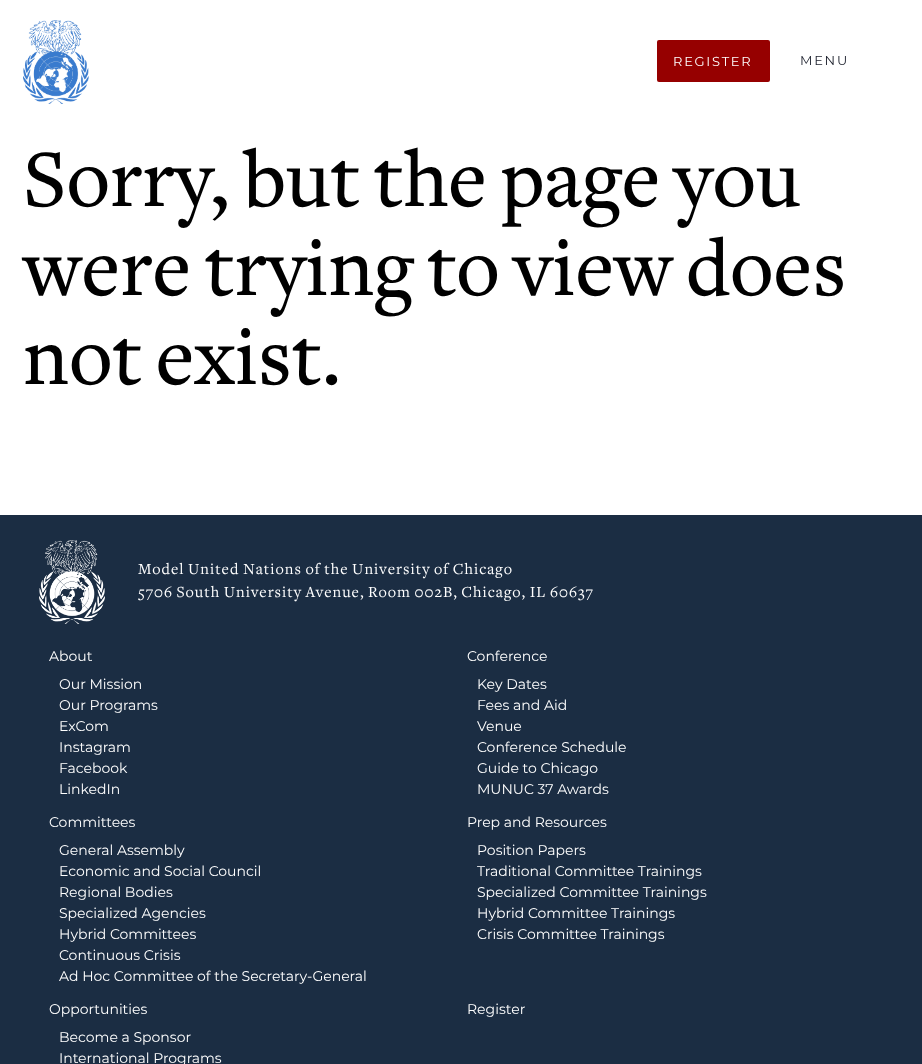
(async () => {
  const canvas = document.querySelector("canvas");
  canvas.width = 922;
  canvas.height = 1064;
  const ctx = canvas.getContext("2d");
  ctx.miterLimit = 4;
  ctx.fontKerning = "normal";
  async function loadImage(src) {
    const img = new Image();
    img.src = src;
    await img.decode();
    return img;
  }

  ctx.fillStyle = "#1b2d43";
  ctx.fillRect(0, 0, 922, 1064);
  ctx.fillStyle = "#ffffff";
  ctx.fillRect(0, 0, 922, 515);
  ctx.drawImage(await loadImage("img/1.png"), 23, 20, 66, 84);
  ctx.fillStyle = "#960000";
  ctx.beginPath();
  ctx.roundRect(657, 40, 113, 42, 2);
  ctx.fill();
  ctx.drawImage(await loadImage("img/2.png"), 39, 540, 66, 84);
  ctx.letterSpacing = "1.75px";
  ctx.font = "13px Montserrat";
  ctx.fillStyle = "#ffffff";
  ctx.fillText("REGISTER", 673, 66);
  ctx.fillStyle = "#202430";
  ctx.fillText("MENU", 800, 65);
  ctx.letterSpacing = "0px";
  ctx.font = "500 84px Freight";
  ctx.fillStyle = "#000000";
  for (const [text, x, y] of [
    ["Sorry, but the page you", 23, 206],
    ["were trying to view does", 23, 295],
    ["not exist.", 23, 384],
  ]) {
    ctx.fillText(text, x, y);
  }
  ctx.letterSpacing = "1px";
  ctx.font = "16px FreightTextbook";
  ctx.fillStyle = "#ffffff";
  ctx.fillText("Model United Nations of the University of Chicago", 138, 574);
  ctx.fillText("5706 South University Avenue, Room 002B, Chicago, IL 60637", 138, 597);
  ctx.letterSpacing = "0px";
  ctx.font = "14px Montserrat";
  for (const [text, x, y] of [
    ["About", 49, 661],
    ["Our Mission", 59, 689],
    ["Our Programs", 59, 710],
    ["ExCom", 59, 731],
    ["Instagram", 59, 752],
    ["Facebook", 59, 773],
    ["LinkedIn", 59, 794],
    ["Conference", 467, 661],
    ["Key Dates", 477, 689],
    ["Fees and Aid", 477, 710],
    ["Venue", 477, 731],
    ["Conference Schedule", 477, 752],
    ["Guide to Chicago", 477, 773],
    ["MUNUC 37 Awards", 477, 794],
    ["Committees", 49, 827],
    ["General Assembly", 59, 855],
    ["Economic and Social Council", 59, 876],
    ["Regional Bodies", 59, 897],
    ["Specialized Agencies", 59, 918],
    ["Hybrid Committees", 59, 939],
    ["Continuous Crisis", 59, 960],
    ["Ad Hoc Committee of the Secretary-General", 59, 981],
    ["Prep and Resources", 467, 827],
    ["Position Papers", 477, 855],
    ["Traditional Committee Trainings", 477, 876],
    ["Specialized Committee Trainings", 477, 897],
    ["Hybrid Committee Trainings", 477, 918],
    ["Crisis Committee Trainings", 477, 939],
    ["Opportunities", 49, 1014],
    ["Become a Sponsor", 59, 1042],
    ["International Programs", 59, 1063],
    ["Register", 467, 1014],
  ]) {
    ctx.fillText(text, x, y);
  }
})();
